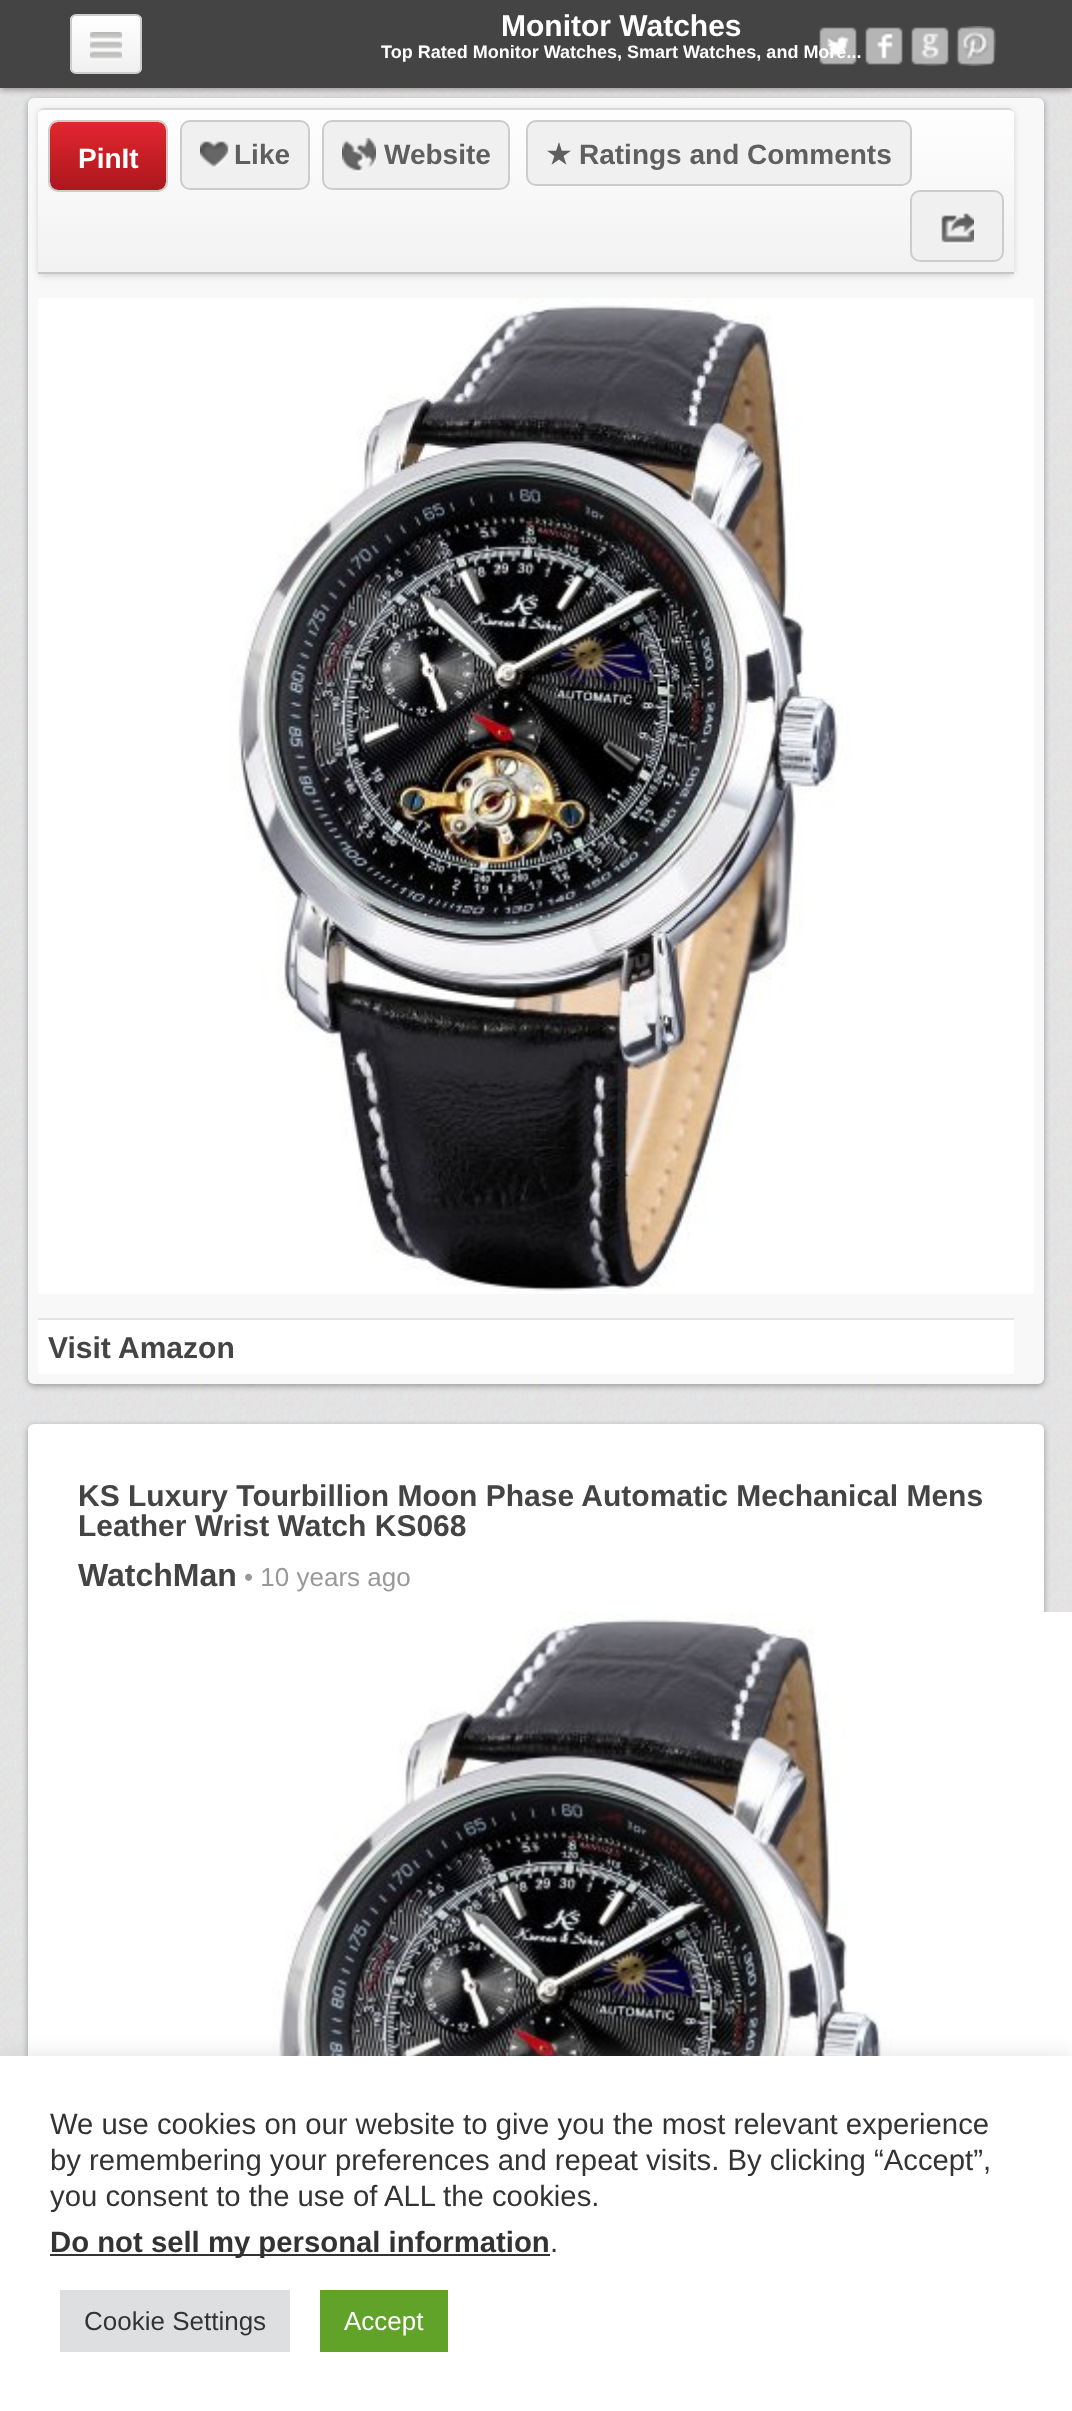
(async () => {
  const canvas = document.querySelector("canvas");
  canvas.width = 1072;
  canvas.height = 2411;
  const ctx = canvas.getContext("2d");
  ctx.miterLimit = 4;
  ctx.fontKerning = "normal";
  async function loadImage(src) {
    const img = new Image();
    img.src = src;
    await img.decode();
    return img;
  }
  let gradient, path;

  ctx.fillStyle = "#ffffff";
  ctx.fillRect(0, 0, 1072, 2411);
  ctx.drawImage(await loadImage("img/1.png"), 0, 88, 1072, 1968);
  ctx.fillStyle = "rgba(0, 0, 0, 0.33)";
  ctx.filter = "blur(3px)";
  ctx.beginPath();
  ctx.roundRect(28, 100, 1016, 1286, 6);
  ctx.fill();
  ctx.filter = "none";
  ctx.fillStyle = "#f8f8f8";
  ctx.beginPath();
  ctx.roundRect(28, 98, 1016, 1286, 6);
  ctx.fill();
  ctx.fillStyle = "rgba(34, 25, 25, 0.4)";
  ctx.filter = "blur(3px)";
  ctx.beginPath();
  ctx.rect(0, 2, 1072, 88);
  ctx.fill();
  ctx.filter = "none";
  ctx.fillStyle = "#444444";
  ctx.fillRect(0, 0, 1072, 88);
  ctx.save();
  ctx.beginPath();
  ctx.roundRect(70, 14, 72, 60, 6);
  ctx.clip();
  gradient = ctx.createLinearGradient(106, 16, 106, 72);
  gradient.addColorStop(0, "#ffffff");
  gradient.addColorStop(1, "#f0f0f0");
  ctx.fillStyle = gradient;
  ctx.fillRect(70, 16, 72, 56);
  ctx.restore();
  ctx.beginPath();
  ctx.roundRect(71, 15, 70, 58, 5);
  ctx.strokeStyle = "#cccccc";
  ctx.lineWidth = 2;
  ctx.stroke();
  ctx.drawImage(await loadImage("img/2.png"), 90, 32, 32, 28);
  ctx.drawImage(await loadImage("img/3.png"), 819, 27, 38, 38);
  ctx.drawImage(await loadImage("img/4.png"), 865, 27, 38, 38);
  ctx.drawImage(await loadImage("img/5.png"), 911, 27, 38, 39);
  ctx.drawImage(await loadImage("img/6.png"), 956, 26, 40, 40);
  ctx.save();
  path = new Path2D("M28 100H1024V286H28ZM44 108H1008C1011.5 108 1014 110.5 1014 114V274H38V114C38 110.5 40.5 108 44 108Z");
  ctx.clip(path, "evenodd");
  ctx.fillStyle = "rgba(0, 0, 0, 0.15)";
  ctx.filter = "blur(3px)";
  ctx.beginPath();
  ctx.roundRect(38, 110, 976, 166, 6);
  ctx.fill();
  ctx.filter = "none";
  ctx.restore();
  ctx.save();
  ctx.beginPath();
  ctx.roundRect(38, 108, 976, 166, [6, 6, 0, 0]);
  ctx.clip();
  gradient = ctx.createLinearGradient(526, -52, 526, 110);
  gradient.addColorStop(0, "#fefefe");
  gradient.addColorStop(1, "#f2f2f2");
  ctx.fillStyle = gradient;
  ctx.fillRect(38, 108, 976, 2);
  gradient = ctx.createLinearGradient(526, 110, 526, 272);
  gradient.addColorStop(0, "rgba(255, 255, 255, 0.9)");
  gradient.addColorStop(1, "rgba(241, 241, 241, 0.9)");
  ctx.fillStyle = gradient;
  ctx.fillRect(38, 110, 976, 162);
  ctx.restore();
  ctx.fillStyle = "rgba(0, 0, 0, 0.1)";
  path = new Path2D("M44 108C41 108 38 111 38 114C38 112 41 110 44 110H1008C1011 110 1014 112 1014 114C1014 111 1011 108 1008 108Z");
  ctx.fill(path);
  ctx.fillStyle = "#c6c6c6";
  ctx.fillRect(38, 272, 976, 2);
  gradient = ctx.createLinearGradient(108, 122, 108, 190);
  gradient.addColorStop(0, "#e3262e");
  gradient.addColorStop(1, "#ab171e");
  ctx.fillStyle = gradient;
  ctx.beginPath();
  ctx.roundRect(50, 122, 116, 68, 8);
  ctx.fill();
  ctx.beginPath();
  ctx.roundRect(49, 121, 118, 70, 9);
  ctx.stroke();
  ctx.fillStyle = "#f0f0f0";
  ctx.beginPath();
  ctx.roundRect(181, 121, 128, 68, 9);
  ctx.fill();
  ctx.stroke();
  ctx.drawImage(await loadImage("img/7.png"), 200, 141, 30, 27);
  ctx.beginPath();
  ctx.roundRect(323, 121, 186, 68, 9);
  ctx.fill();
  ctx.stroke();
  ctx.drawImage(await loadImage("img/8.png"), 342, 138, 34, 34);
  ctx.beginPath();
  ctx.roundRect(527, 121, 384, 64, 9);
  ctx.fill();
  ctx.stroke();
  ctx.beginPath();
  ctx.roundRect(911, 191, 92, 70, 9);
  ctx.fill();
  ctx.stroke();
  ctx.drawImage(await loadImage("img/9.png"), 941, 213, 33, 31);
  ctx.drawImage(await loadImage("img/10.png"), 38, 298, 996, 996);
  ctx.fillStyle = "#ffffff";
  ctx.fillRect(38, 1320, 976, 54);
  ctx.fillStyle = "#e3e3e3";
  ctx.fillRect(38, 1318, 976, 2);
  ctx.fillStyle = "rgba(0, 0, 0, 0.33)";
  ctx.filter = "blur(3px)";
  ctx.beginPath();
  ctx.roundRect(28, 1426, 1016, 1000, 6);
  ctx.fill();
  ctx.filter = "none";
  ctx.fillStyle = "#ffffff";
  ctx.beginPath();
  ctx.roundRect(28, 1424, 1016, 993, 6);
  ctx.fill();
  ctx.drawImage(await loadImage("img/11.png"), 272, 1612, 800, 444);
  ctx.fillStyle = "rgba(172, 171, 171, 0.3)";
  ctx.filter = "blur(10px)";
  ctx.beginPath();
  ctx.rect(0, 2054, 1072, 356);
  ctx.fill();
  ctx.filter = "none";
  for (const [x, y, w, h, color] of [
    [0, 2056, 1072, 355, "#ffffff"],
    [50, 2254, 500, 2, "#333333"],
    [60, 2290, 230, 62, "#dedfe0"],
    [320, 2290, 128, 62, "#61a229"],
  ]) {
    ctx.fillStyle = color;
    ctx.fillRect(x, y, w, h);
  }
  ctx.font = "bold 30px Liberation Sans";
  ctx.fillStyle = "#ffffff";
  ctx.fillText("Monitor Watches", 501, 36);
  ctx.font = "bold 18px Liberation Sans";
  ctx.fillText("Top Rated Monitor Watches, Smart Watches, and More...", 381, 58);
  ctx.font = "bold 28px Liberation Sans";
  ctx.fillText("PinIt", 78, 168);
  ctx.fillStyle = "#5f5f5f";
  ctx.fillText("Like", 234, 164);
  ctx.fillText("Website", 384, 164);
  ctx.font = "bold 28px DejaVu Sans";
  ctx.fillText("★", 546, 164);
  ctx.font = "bold 28px Liberation Sans";
  ctx.fillText("Ratings and Comments", 579, 164);
  ctx.font = "bold 30px Liberation Sans";
  ctx.fillStyle = "#444444";
  for (const [text, x, y] of [
    ["Visit Amazon", 48, 1358],
    ["KS Luxury Tourbillion Moon Phase Automatic Mechanical Mens", 78, 1506],
    ["Leather Wrist Watch KS068", 78, 1536],
  ]) {
    ctx.fillText(text, x, y);
  }
  ctx.font = "bold 32px Liberation Sans";
  ctx.fillText("WatchMan", 78, 1586);
  ctx.font = "26px Liberation Sans";
  ctx.fillStyle = "#999999";
  ctx.fillText("• 10 years ago", 244, 1586);
  ctx.font = "29.3px Liberation Sans";
  ctx.fillStyle = "#333333";
  for (const [text, x, y] of [
    ["We use cookies on our website to give you the most relevant experience", 50, 2134],
    ["by remembering your preferences and repeat visits. By clicking “Accept”,", 50, 2170],
    ["you consent to the use of ALL the cookies.", 50, 2206],
  ]) {
    ctx.fillText(text, x, y);
  }
  ctx.font = "bold 29.3px Liberation Sans";
  ctx.fillText("Do not sell my personal information", 50, 2252);
  ctx.font = "29.3px Liberation Sans";
  ctx.fillText(".", 550, 2252);
  ctx.font = "26px Liberation Sans";
  ctx.fillText("Cookie Settings", 84, 2330);
  ctx.fillStyle = "#ffffff";
  ctx.fillText("Accept", 344, 2330);
})();
